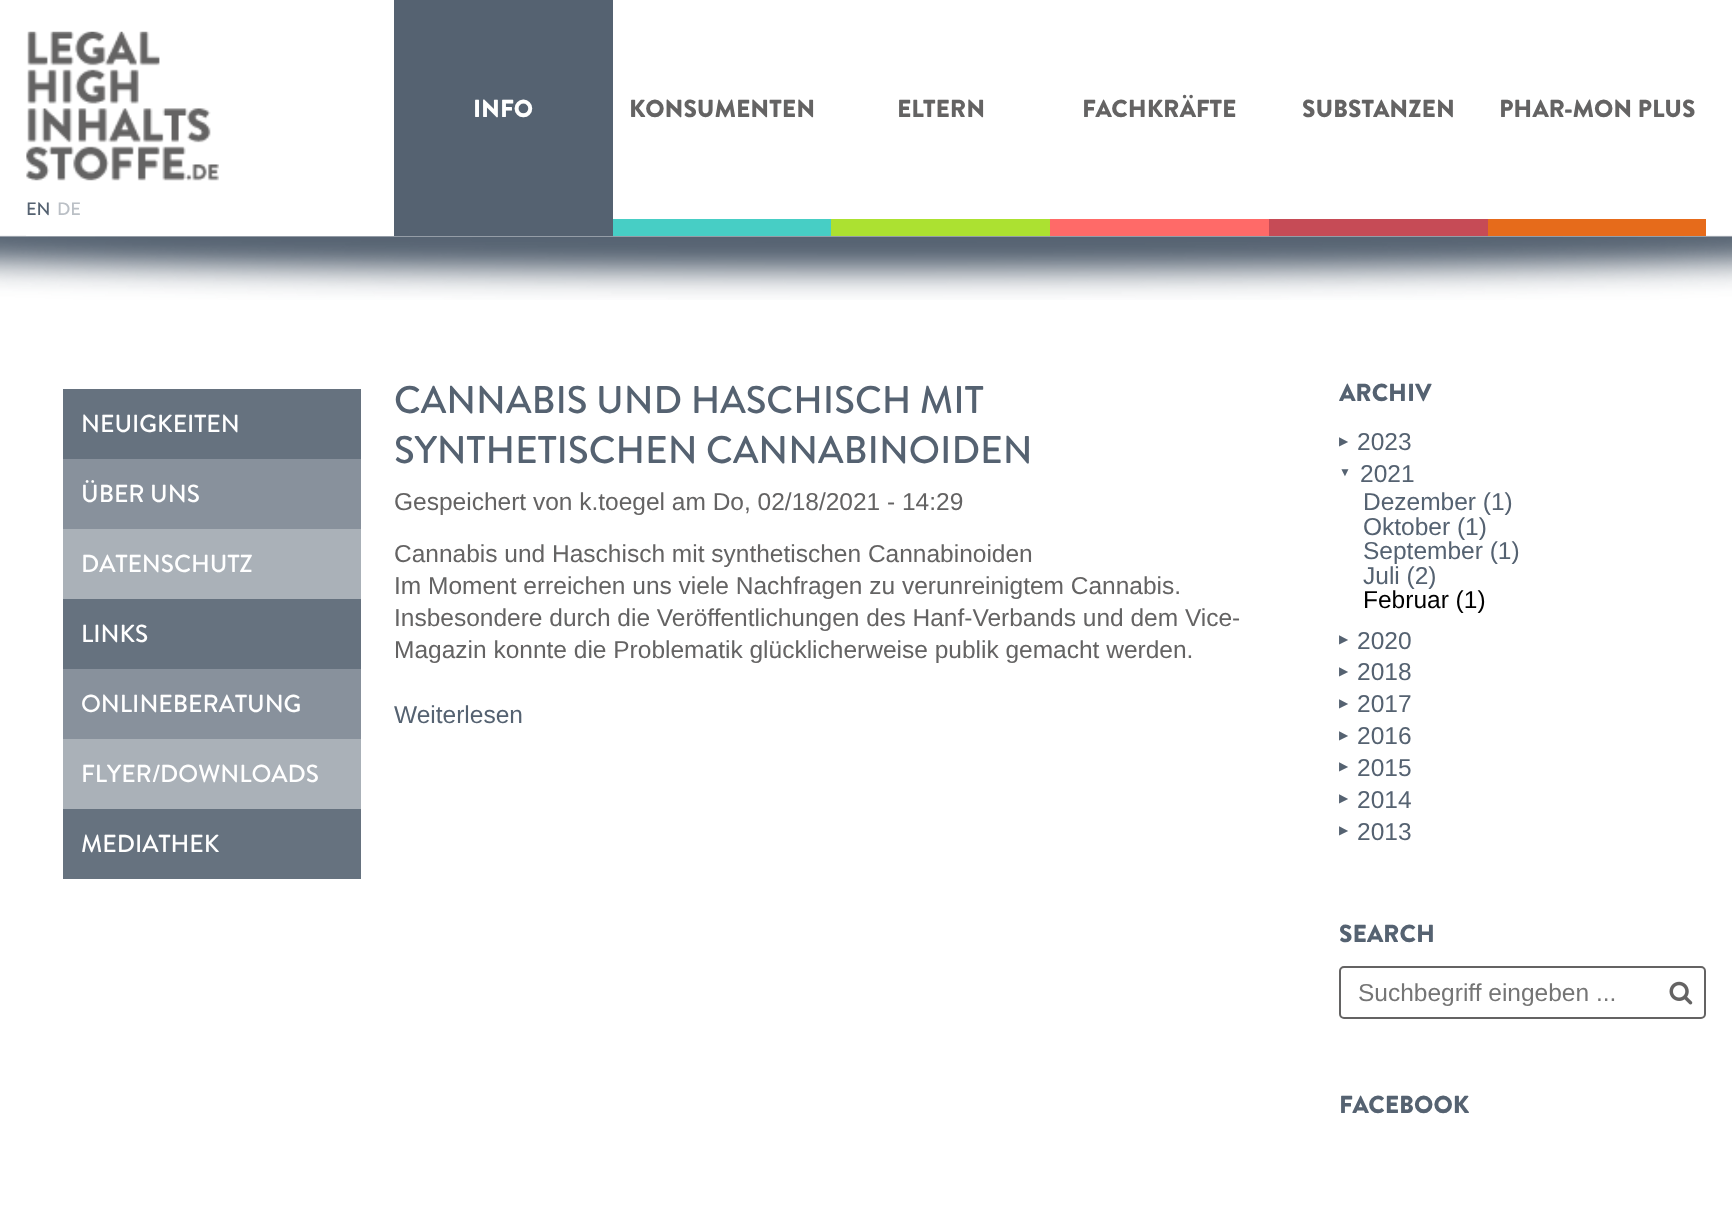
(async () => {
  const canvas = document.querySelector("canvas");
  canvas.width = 1732;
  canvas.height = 1210;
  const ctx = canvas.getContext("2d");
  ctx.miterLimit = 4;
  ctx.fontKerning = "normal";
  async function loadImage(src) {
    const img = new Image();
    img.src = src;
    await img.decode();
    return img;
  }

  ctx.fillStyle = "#ffffff";
  ctx.fillRect(0, 0, 1732, 1210);
  ctx.drawImage(await loadImage("img/1.png"), 0, 235, 1732, 65);
  ctx.fillRect(26, 235, 368, 1);
  ctx.drawImage(await loadImage("img/2.png"), 26, 31, 193, 150);
  for (const [x, y, w, h, color] of [
    [394, 0, 219, 236, "#556271"],
    [613, 219, 218, 17, "#47cec5"],
    [831, 219, 219, 17, "#ace131"],
    [1050, 219, 219, 17, "#ff6a68"],
    [1269, 219, 219, 17, "#c64b56"],
    [1488, 219, 218, 17, "#e66b1b"],
    [63, 389, 298, 70, "#66727f"],
    [63, 459, 298, 70, "#88919c"],
    [63, 529, 298, 70, "#aab1b8"],
    [63, 599, 298, 70, "#66727f"],
    [63, 669, 298, 70, "#88919c"],
    [63, 739, 298, 70, "#aab1b8"],
    [63, 809, 298, 70, "#66727f"],
  ]) {
    ctx.fillStyle = color;
    ctx.fillRect(x, y, w, h);
  }
  ctx.beginPath();
  ctx.roundRect(1340, 967, 365, 51, 4);
  ctx.strokeStyle = "#646363";
  ctx.lineWidth = 2;
  ctx.stroke();
  ctx.drawImage(await loadImage("img/3.png"), 1669, 981, 24, 24);
  ctx.font = "900 24.5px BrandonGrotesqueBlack";
  ctx.fillStyle = "#ffffff";
  ctx.fillText("INFO", 473, 117);
  ctx.fillStyle = "#646363";
  for (const [text, x, y] of [
    ["KONSUMENTEN", 629, 117],
    ["ELTERN", 897, 117],
    ["FACHKRÄFTE", 1082, 117],
    ["SUBSTANZEN", 1302, 117],
    ["PHAR-MON PLUS", 1499, 117],
  ]) {
    ctx.fillText(text, x, y);
  }
  ctx.font = "500 18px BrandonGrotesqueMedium";
  ctx.fillStyle = "#556271";
  ctx.fillText("EN", 26, 215);
  ctx.fillStyle = "#bbc0c6";
  ctx.fillText("DE", 57, 215);
  ctx.font = "500 24.5px BrandonGrotesqueMedium";
  ctx.fillStyle = "#ffffff";
  for (const [text, x, y] of [
    ["NEUIGKEITEN", 81, 432],
    ["ÜBER UNS", 81, 502],
    ["DATENSCHUTZ", 81, 572],
    ["LINKS", 81, 642],
    ["ONLINEBERATUNG", 81, 712],
    ["FLYER/DOWNLOADS", 81, 782],
    ["MEDIATHEK", 81, 852],
  ]) {
    ctx.fillText(text, x, y);
  }
  ctx.font = "500 38.5px BrandonGrotesqueMedium";
  ctx.fillStyle = "#556271";
  ctx.fillText("CANNABIS UND HASCHISCH MIT", 394, 413);
  ctx.fillText("SYNTHETISCHEN CANNABINOIDEN", 394, 463);
  ctx.font = "24.5px Liberation Sans";
  ctx.fillStyle = "#646363";
  for (const [text, x, y] of [
    ["Gespeichert von k.toegel am Do, 02/18/2021 - 14:29", 394, 510],
    ["Cannabis und Haschisch mit synthetischen Cannabinoiden", 394, 562],
    ["Im Moment erreichen uns viele Nachfragen zu verunreinigtem Cannabis.", 394, 594],
    ["Insbesondere durch die Veröffentlichungen des Hanf-Verbands und dem Vice-", 394, 626],
    ["Magazin konnte die Problematik glücklicherweise publik gemacht werden.", 394, 658],
  ]) {
    ctx.fillText(text, x, y);
  }
  ctx.fillStyle = "#556271";
  ctx.fillText("Weiterlesen", 394, 723);
  ctx.font = "900 24.5px BrandonGrotesqueBlack";
  ctx.fillText("ARCHIV", 1339, 401);
  ctx.font = "12px DejaVu Sans";
  ctx.fillText("▶", 1339, 445);
  ctx.font = "24.5px Liberation Sans";
  ctx.fillText("2023", 1357, 450);
  ctx.font = "12px Liberation Sans";
  ctx.fillText("▼", 1339, 476);
  ctx.font = "24.5px Liberation Sans";
  for (const [text, x, y] of [
    ["2021", 1360, 482],
    ["Dezember (1)", 1363, 510],
    ["Oktober (1)", 1363, 535],
    ["September (1)", 1363, 559],
    ["Juli (2)", 1363, 584],
  ]) {
    ctx.fillText(text, x, y);
  }
  ctx.fillStyle = "#000000";
  ctx.fillText("Februar (1)", 1363, 608);
  ctx.font = "12px DejaVu Sans";
  ctx.fillStyle = "#556271";
  ctx.fillText("▶", 1339, 643);
  ctx.font = "24.5px Liberation Sans";
  ctx.fillText("2020", 1357, 649);
  ctx.font = "12px DejaVu Sans";
  ctx.fillText("▶", 1339, 675);
  ctx.font = "24.5px Liberation Sans";
  ctx.fillText("2018", 1357, 680);
  ctx.font = "12px DejaVu Sans";
  ctx.fillText("▶", 1339, 707);
  ctx.font = "24.5px Liberation Sans";
  ctx.fillText("2017", 1357, 712);
  ctx.font = "12px DejaVu Sans";
  ctx.fillText("▶", 1339, 739);
  ctx.font = "24.5px Liberation Sans";
  ctx.fillText("2016", 1357, 744);
  ctx.font = "12px DejaVu Sans";
  ctx.fillText("▶", 1339, 770);
  ctx.font = "24.5px Liberation Sans";
  ctx.fillText("2015", 1357, 776);
  ctx.font = "12px DejaVu Sans";
  ctx.fillText("▶", 1339, 802);
  ctx.font = "24.5px Liberation Sans";
  ctx.fillText("2014", 1357, 808);
  ctx.font = "12px DejaVu Sans";
  ctx.fillText("▶", 1339, 834);
  ctx.font = "24.5px Liberation Sans";
  ctx.fillText("2013", 1357, 840);
  ctx.font = "900 24.5px BrandonGrotesqueBlack";
  ctx.fillText("SEARCH", 1339, 942);
  ctx.font = "24.5px Liberation Sans";
  ctx.fillStyle = "#757575";
  ctx.fillText("Suchbegriff eingeben ...", 1358, 1001);
  ctx.font = "900 24.5px BrandonGrotesqueBlack";
  ctx.fillStyle = "#556271";
  ctx.fillText("FACEBOOK", 1339, 1113);
})();
